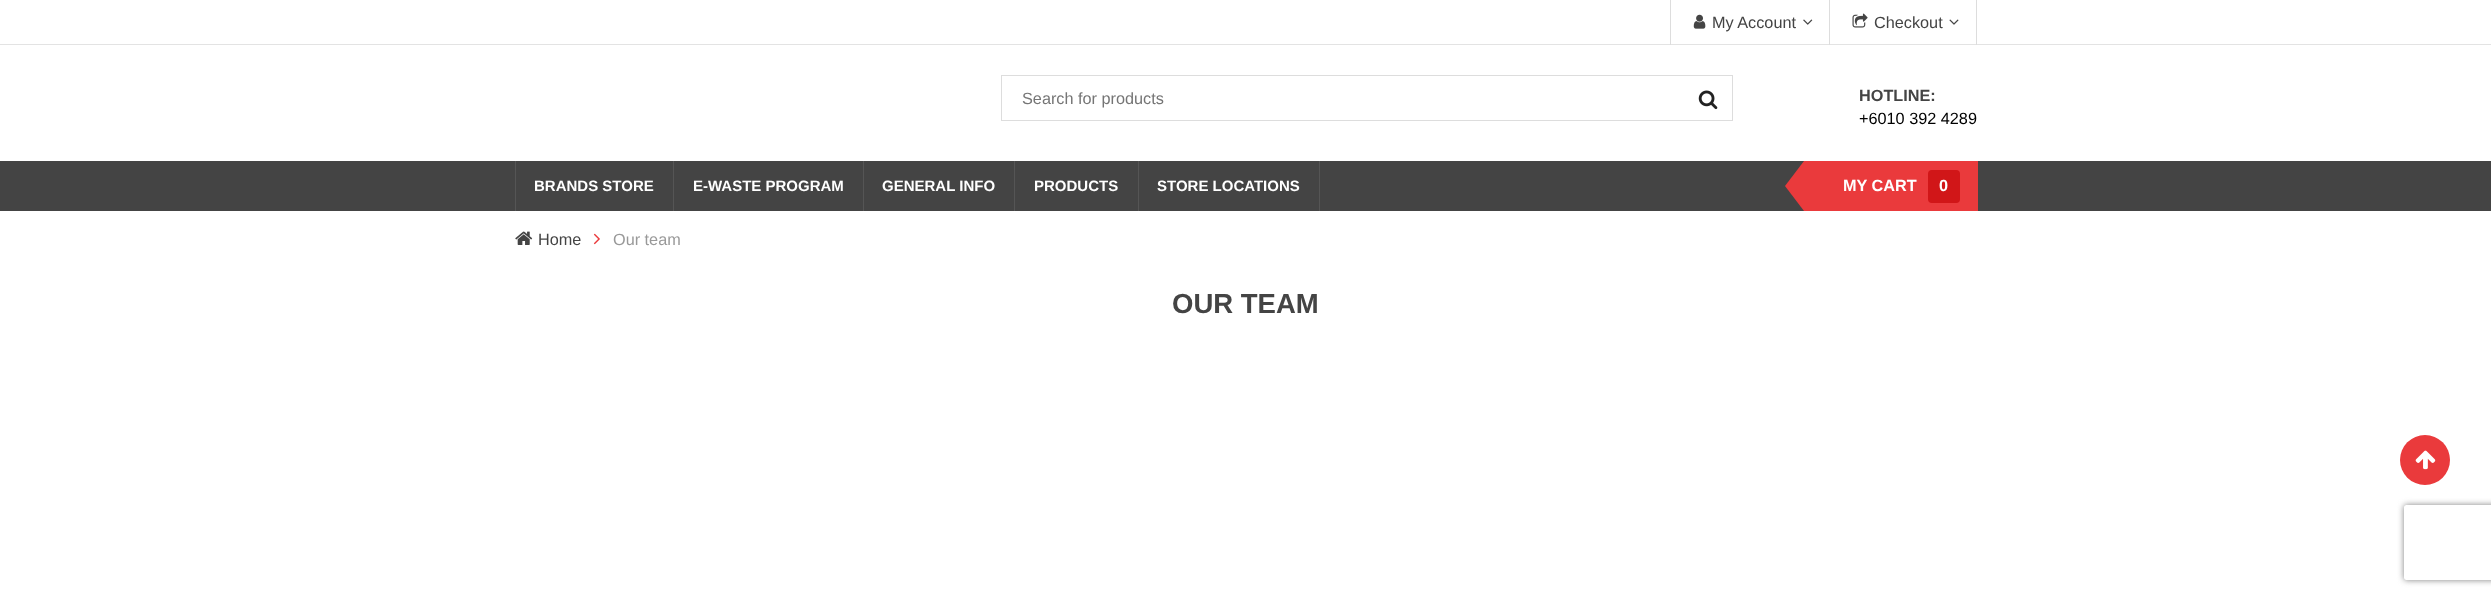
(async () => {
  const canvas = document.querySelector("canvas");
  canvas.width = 2491;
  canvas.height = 597;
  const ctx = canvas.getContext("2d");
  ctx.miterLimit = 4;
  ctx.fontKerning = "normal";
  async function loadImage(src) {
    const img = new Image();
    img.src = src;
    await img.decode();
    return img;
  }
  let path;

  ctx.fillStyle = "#ffffff";
  ctx.fillRect(0, 0, 2491, 597);
  for (const [x, y, w, h, color] of [
    [0, 44, 2491, 1, "#e3e3e3"],
    [1829, 0, 1, 45, "#dddddd"],
    [1670, 0, 1, 45, "#dddddd"],
  ]) {
    ctx.fillStyle = color;
    ctx.fillRect(x, y, w, h);
  }
  ctx.drawImage(await loadImage("img/1.png"), 1693, 14, 13, 15);
  ctx.drawImage(await loadImage("img/2.png"), 1803, 19, 10, 6);
  ctx.fillRect(1976, 0, 1, 45);
  ctx.drawImage(await loadImage("img/3.png"), 1852, 13, 16, 15);
  ctx.drawImage(await loadImage("img/4.png"), 1949, 19, 10, 6);
  ctx.strokeStyle = "#dddddd";
  ctx.strokeRect(1001.5, 75.5, 731, 45);
  ctx.drawImage(await loadImage("img/5.png"), 1698, 90, 20, 20);
  for (const [x, y, w, h, color] of [
    [0, 161, 2491, 50, "#444444"],
    [673, 161, 1, 50, "#555555"],
    [515, 161, 1, 50, "#555555"],
    [863, 161, 1, 50, "#555555"],
    [1014, 161, 1, 50, "#555555"],
    [1138, 161, 1, 50, "#555555"],
    [1319, 161, 1, 50, "#555555"],
    [1804, 161, 174, 50, "#ea3a3c"],
  ]) {
    ctx.fillStyle = color;
    ctx.fillRect(x, y, w, h);
  }
  path = new Path2D("M1804 161V211L1785 186Z");
  ctx.fill(path);
  ctx.fillStyle = "#d11618";
  ctx.beginPath();
  ctx.roundRect(1928, 170, 32, 33, 4);
  ctx.fill();
  ctx.drawImage(await loadImage("img/6.png"), 515, 231, 18, 14);
  ctx.drawImage(await loadImage("img/7.png"), 593, 233, 7, 12);
  ctx.fillStyle = "#ea3a3c";
  ctx.beginPath();
  ctx.arc(2425, 460, 25, 0, Math.PI * 2);
  ctx.fill();
  ctx.drawImage(await loadImage("img/8.png"), 2415, 450, 21, 20);
  ctx.save();
  path = new Path2D("M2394 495H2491V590H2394ZM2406.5 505H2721.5C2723 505 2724 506 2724 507.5V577.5C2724 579 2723 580 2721.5 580H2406.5C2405 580 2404 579 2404 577.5V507.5C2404 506 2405 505 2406.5 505Z");
  ctx.clip(path, "evenodd");
  ctx.fillStyle = "#808080";
  ctx.filter = "blur(3px)";
  ctx.beginPath();
  ctx.roundRect(2404, 505, 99, 75, 2.5);
  ctx.fill();
  ctx.filter = "none";
  ctx.restore();
  ctx.font = "16.25px Liberation Sans";
  ctx.fillStyle = "#444444";
  ctx.fillText("My Account", 1712, 28);
  ctx.fillText("Checkout", 1874, 28);
  ctx.fillStyle = "#757575";
  ctx.fillText("Search for products", 1022, 104);
  ctx.font = "bold 16.25px Liberation Sans";
  ctx.fillStyle = "#444444";
  ctx.fillText("HOTLINE:", 1859, 101);
  ctx.font = "16.25px Liberation Sans";
  ctx.fillStyle = "#000000";
  ctx.fillText("+6010 392 4289", 1859, 124);
  ctx.font = "bold 15px Liberation Sans";
  ctx.fillStyle = "#ffffff";
  for (const [text, x, y] of [
    ["BRANDS STORE", 534, 191],
    ["E-WASTE PROGRAM", 693, 191],
    ["GENERAL INFO", 882, 191],
    ["PRODUCTS", 1034, 191],
    ["STORE LOCATIONS", 1157, 191],
  ]) {
    ctx.fillText(text, x, y);
  }
  ctx.font = "bold 16.25px Liberation Sans";
  ctx.fillText("MY CART", 1843, 191);
  ctx.fillText("0", 1939, 191);
  ctx.font = "16.25px Liberation Sans";
  ctx.fillStyle = "#444444";
  ctx.fillText("Home", 538, 245);
  ctx.fillStyle = "#999999";
  ctx.fillText("Our team", 613, 245);
  ctx.font = "bold 27.5px Liberation Sans";
  ctx.fillStyle = "#444444";
  ctx.fillText("OUR TEAM", 1172, 313);
})();
